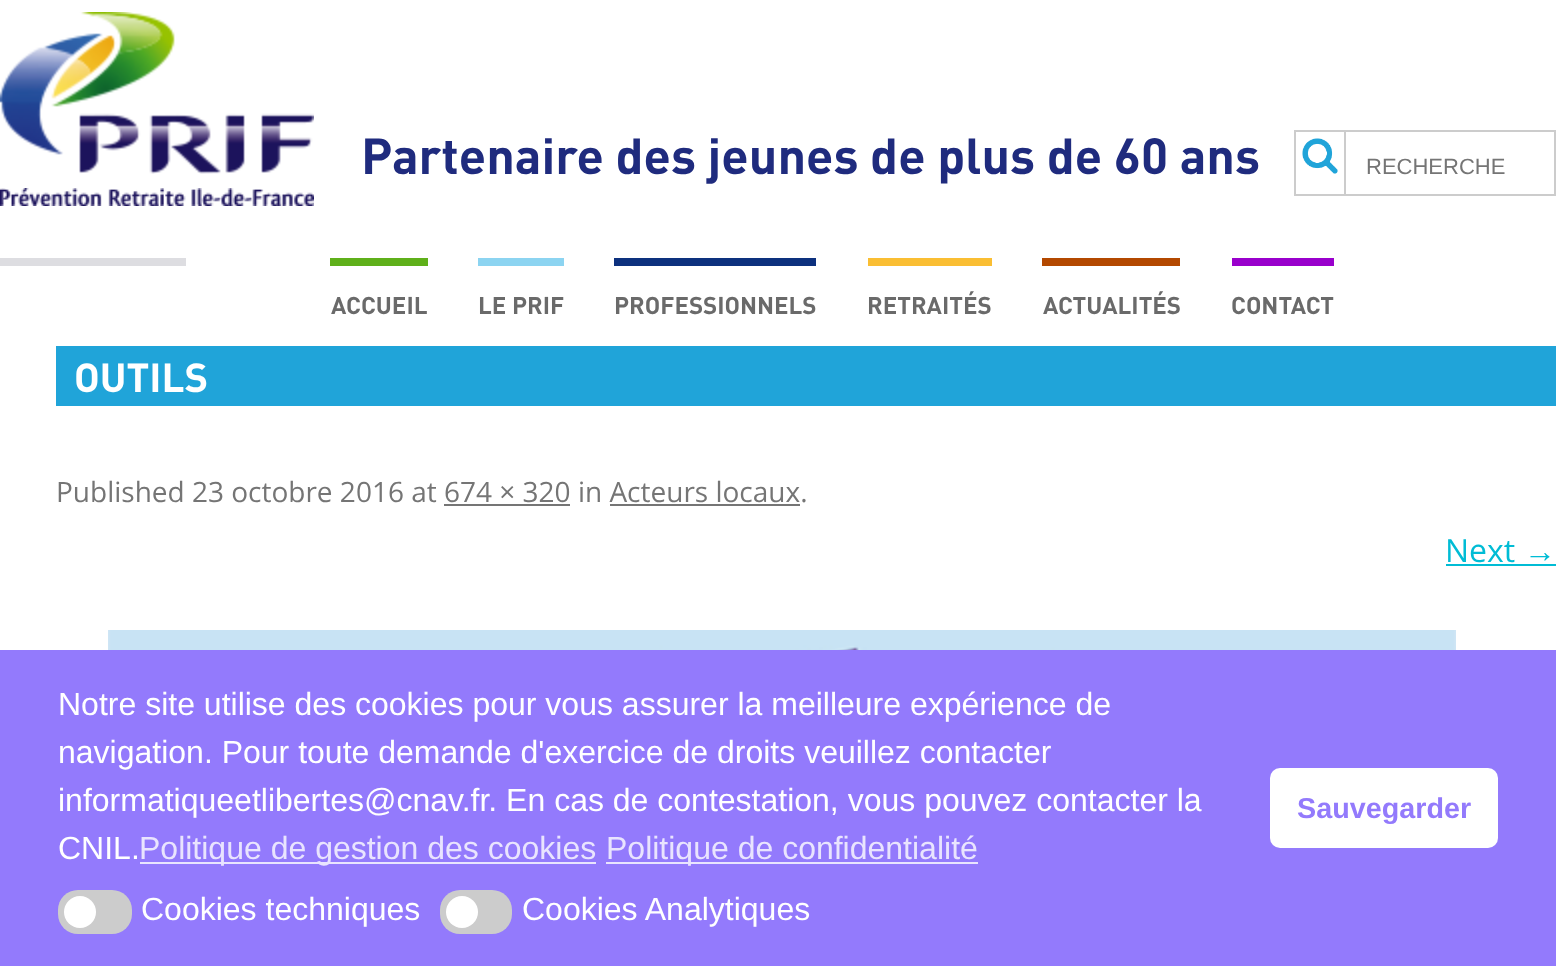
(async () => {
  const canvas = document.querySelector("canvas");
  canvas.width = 1556;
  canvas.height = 966;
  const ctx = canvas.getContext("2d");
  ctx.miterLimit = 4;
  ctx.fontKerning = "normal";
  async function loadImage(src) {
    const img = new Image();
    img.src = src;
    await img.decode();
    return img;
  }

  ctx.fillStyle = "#ffffff";
  ctx.fillRect(0, 0, 1556, 966);
  ctx.drawImage(await loadImage("img/1.png"), 0, 12, 314, 162);
  ctx.drawImage(await loadImage("img/2.png"), 0, 188, 314, 18);
  ctx.strokeStyle = "#cccccc";
  ctx.lineWidth = 2;
  ctx.strokeRect(1295, 131, 260, 64);
  ctx.drawImage(await loadImage("img/3.png"), 1302, 138, 36, 36);
  for (const [x, y, w, h, color] of [
    [1344, 132, 2, 62, "#cccccc"],
    [0, 258, 186, 8, "#dddde1"],
    [330, 258, 98, 8, "#5fb01a"],
    [478, 258, 86, 8, "#8cd4f1"],
    [614, 258, 202, 8, "#0d317e"],
    [868, 258, 124, 8, "#fabe33"],
    [1042, 258, 138, 8, "#b34800"],
    [1232, 258, 102, 8, "#9900cc"],
    [56, 346, 1500, 60, "#20a4d9"],
    [444, 504, 126, 2, "#757575"],
    [610, 504, 190, 2, "#757575"],
    [1446, 564, 110, 2, "#00bcd5"],
  ]) {
    ctx.fillStyle = color;
    ctx.fillRect(x, y, w, h);
  }
  ctx.drawImage(await loadImage("img/4.png"), 108, 630, 1348, 20);
  for (const [x, y, w, h, color] of [
    [0, 650, 1556, 316, "#937afc"],
    [140, 862, 456, 2, "#e9e4fe"],
    [606, 862, 372, 2, "#e9e4fe"],
  ]) {
    ctx.fillStyle = color;
    ctx.fillRect(x, y, w, h);
  }
  ctx.fillStyle = "#cccccc";
  ctx.beginPath();
  ctx.roundRect(58, 890, 74, 44, 20);
  ctx.fill();
  ctx.fillStyle = "#ffffff";
  ctx.beginPath();
  ctx.arc(80, 912, 16, 0, Math.PI * 2);
  ctx.fill();
  ctx.fillStyle = "#cccccc";
  ctx.beginPath();
  ctx.roundRect(440, 890, 72, 44, 20);
  ctx.fill();
  ctx.fillStyle = "#ffffff";
  ctx.beginPath();
  ctx.arc(462, 912, 16, 0, Math.PI * 2);
  ctx.fill();
  ctx.beginPath();
  ctx.roundRect(1270, 768, 228, 80, 10);
  ctx.fill();
  ctx.font = "bold 50px DIN";
  ctx.fillStyle = "#1f2b7e";
  ctx.fillText("Partenaire des jeunes de plus de 60 ans", 361, 174);
  ctx.font = "22px Liberation Sans";
  ctx.fillStyle = "#757575";
  ctx.fillText("RECHERCHE", 1366, 174);
  ctx.font = "bold 24px DIN";
  ctx.fillStyle = "#6a6a6a";
  for (const [text, x, y] of [
    ["ACCUEIL", 331, 314],
    ["LE PRIF", 478, 314],
    ["PROFESSIONNELS", 614, 314],
    ["RETRAITÉS", 867, 314],
    ["ACTUALITÉS", 1043, 314],
    ["CONTACT", 1231, 314],
  ]) {
    ctx.fillText(text, x, y);
  }
  ctx.font = "bold 40px DIN";
  ctx.fillStyle = "#ffffff";
  ctx.fillText("OUTILS", 74, 392);
  ctx.font = "28px Open Sans";
  ctx.fillStyle = "#757575";
  ctx.fillText("Published 23 octobre 2016 at 674 × 320 in Acteurs locaux.", 56, 502);
  ctx.font = "32px Open Sans";
  ctx.fillStyle = "#00bcd5";
  ctx.fillText("Next", 1445, 562);
  ctx.font = "32px Liberation Sans";
  ctx.fillText("→", 1524, 562);
  ctx.fillStyle = "#ffffff";
  for (const [text, x, y] of [
    ["Notre site utilise des cookies pour vous assurer la meilleure expérience de", 58, 715],
    ["navigation. Pour toute demande d'exercice de droits veuillez contacter", 58, 763],
    ["informatiqueetlibertes@cnav.fr. En cas de contestation, vous pouvez contacter la", 58, 811],
    ["CNIL.", 58, 859],
  ]) {
    ctx.fillText(text, x, y);
  }
  ctx.fillStyle = "#e9e4fe";
  ctx.fillText("Politique de gestion des cookies", 139, 859);
  ctx.fillText("Politique de confidentialité", 606, 859);
  ctx.fillStyle = "#ffffff";
  ctx.fillText("Cookies techniques", 141, 920);
  ctx.fillText("Cookies Analytiques", 522, 920);
  ctx.font = "bold 28.75px Liberation Sans";
  ctx.fillStyle = "#937afc";
  ctx.fillText("Sauvegarder", 1297, 818);
})();
